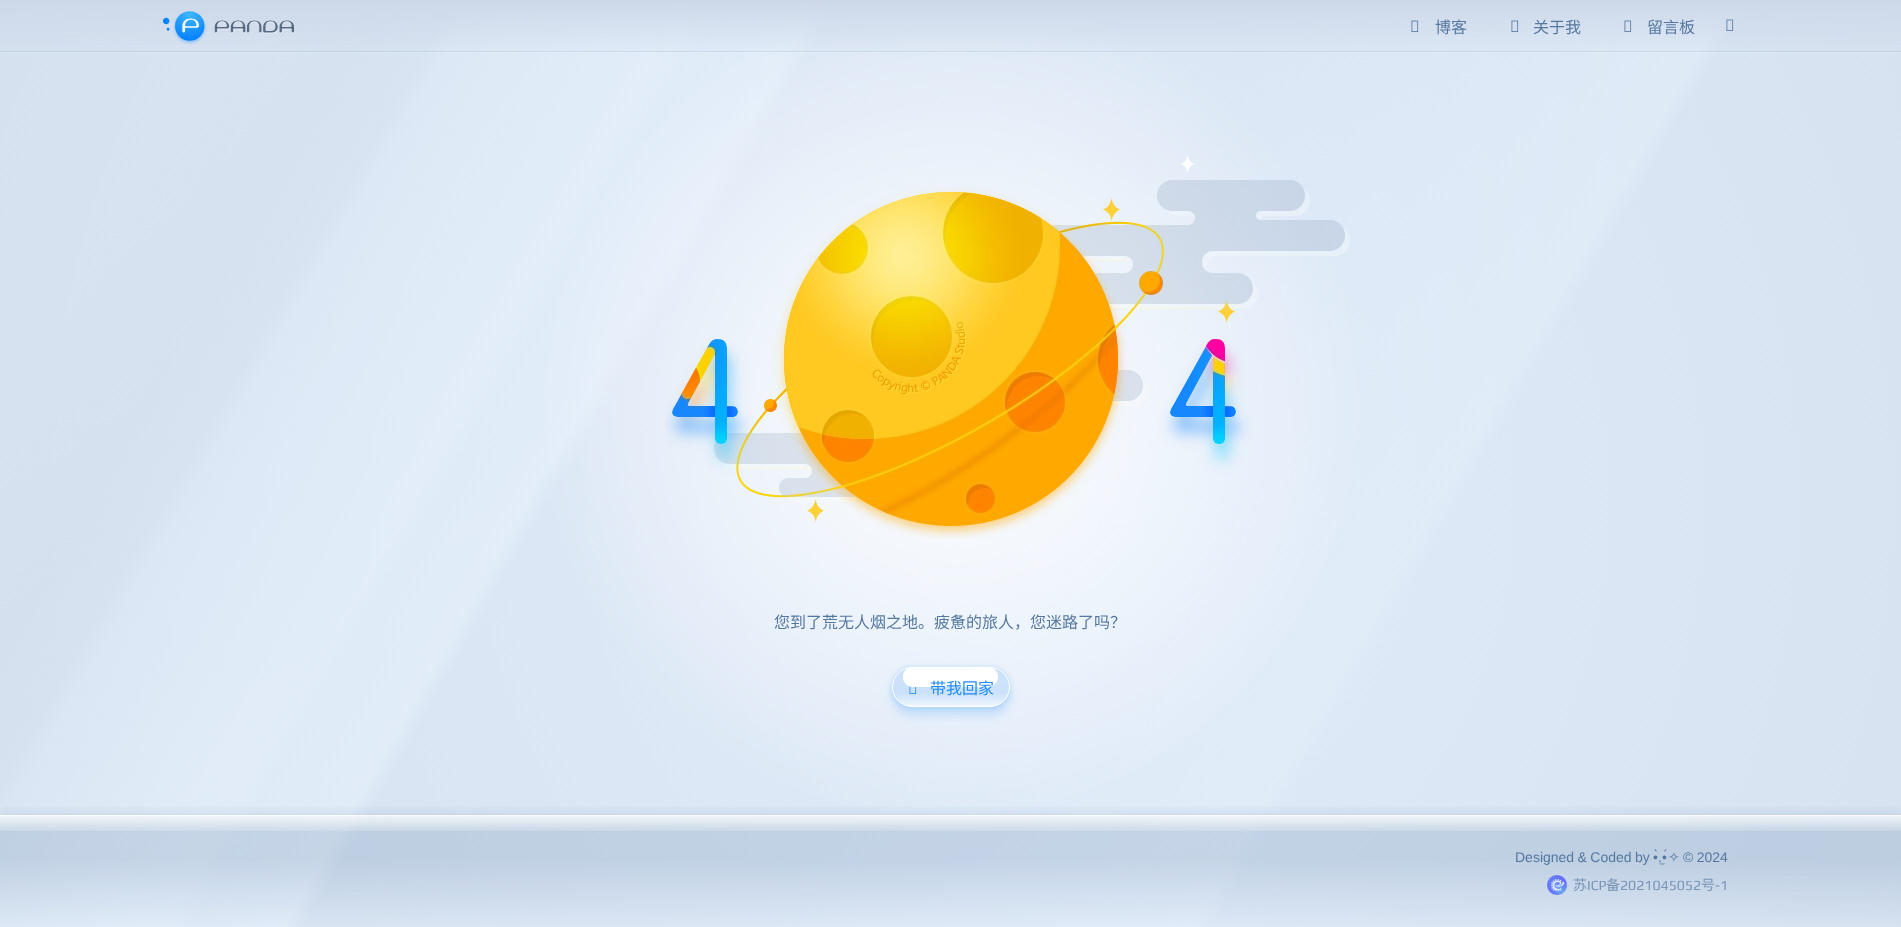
(async () => {
  const canvas = document.querySelector("canvas");
  canvas.width = 1901;
  canvas.height = 927;
  const ctx = canvas.getContext("2d");
  ctx.miterLimit = 4;
  ctx.fontKerning = "normal";
  async function loadImage(src) {
    const img = new Image();
    img.src = src;
    await img.decode();
    return img;
  }
  let gradient, path;

  ctx.fillStyle = "#ffffff";
  ctx.fillRect(0, 0, 1901, 927);
  ctx.drawImage(await loadImage("img/1.png"), 0, 0, 1901, 927);
  ctx.fillStyle = "rgba(255, 255, 255, 0.2)";
  ctx.fillRect(0, 52, 1901, 1);
  ctx.fillStyle = "rgba(85, 120, 161, 0.15)";
  ctx.fillRect(0, 51, 1901, 1);
  ctx.drawImage(await loadImage("img/2.png"), 163, 11, 131, 34);
  ctx.drawImage(await loadImage("img/3.png"), 1411, 20, 8, 12);
  ctx.drawImage(await loadImage("img/4.png"), 1511, 20, 8, 12);
  ctx.drawImage(await loadImage("img/5.png"), 1624, 20, 8, 12);
  ctx.drawImage(await loadImage("img/6.png"), 1726, 19, 8, 12);
  ctx.drawImage(await loadImage("img/7.png"), 665, 155, 685, 385);
  ctx.save();
  path = new Path2D("M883 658H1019V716H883ZM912 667H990C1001 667 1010 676 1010 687C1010 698 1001 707 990 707H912C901 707 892 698 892 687C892 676 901 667 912 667Z");
  ctx.clip(path, "evenodd");
  ctx.fillStyle = "rgba(31, 139, 255, 0.2)";
  ctx.filter = "blur(2.5px)";
  ctx.beginPath();
  ctx.roundRect(892, 667, 118, 40, 20);
  ctx.fill();
  ctx.filter = "none";
  ctx.restore();
  ctx.save();
  path = new Path2D("M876 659H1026V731H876ZM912 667H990C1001 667 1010 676 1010 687C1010 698 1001 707 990 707H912C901 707 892 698 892 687C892 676 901 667 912 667Z");
  ctx.clip(path, "evenodd");
  ctx.fillStyle = "rgba(31, 139, 255, 0.2)";
  ctx.filter = "blur(5px)";
  ctx.beginPath();
  ctx.roundRect(892, 675, 118, 40, 20);
  ctx.fill();
  ctx.filter = "none";
  ctx.restore();
  ctx.fillStyle = "rgba(31, 139, 255, 0.15)";
  ctx.beginPath();
  ctx.roundRect(892, 667, 118, 40, 20);
  ctx.fill();
  gradient = ctx.createLinearGradient(951, 667, 951, 707);
  gradient.addColorStop(0.65, "rgba(255, 255, 255, 0)");
  gradient.addColorStop(1, "rgba(255, 255, 255, 0.75)");
  ctx.fillStyle = gradient;
  ctx.beginPath();
  ctx.roundRect(892.5, 667.5, 117, 39, 19.5);
  ctx.fill();
  ctx.strokeStyle = "#ffffff";
  ctx.stroke();
  ctx.drawImage(await loadImage("img/8.png"), 909, 686, 8, 8);
  gradient = ctx.createLinearGradient(951, 667, 951, 687);
  gradient.addColorStop(0, "#ffffff");
  gradient.addColorStop(1, "rgba(255, 255, 255, 0.3)");
  ctx.fillStyle = gradient;
  ctx.beginPath();
  ctx.roundRect(903, 667, 95, 20, 10);
  ctx.fill();
  ctx.fillStyle = "#ffffff";
  path = new Path2D("M913 667C901 667 899 684 911 687H976C978 687 987 688 992 686C1000 683 1000 671 992 668C987 666 978 667 976 667Z");
  ctx.fill(path);
  ctx.save();
  ctx.beginPath();
  ctx.rect(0, 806, 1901, 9);
  ctx.clip();
  ctx.fillStyle = "rgba(85, 120, 161, 0.1)";
  ctx.filter = "blur(5px)";
  ctx.beginPath();
  ctx.rect(0, 810, 1901, 112);
  ctx.fill();
  ctx.filter = "none";
  ctx.restore();
  ctx.fillStyle = "rgba(85, 120, 161, 0.05)";
  ctx.fillRect(0, 814, 1901, 1);
  ctx.fillStyle = "#fcfdfe";
  ctx.fillRect(0, 815, 1901, 1);
  ctx.drawImage(await loadImage("img/9.png"), 1547, 875, 20, 20);
  ctx.font = "16px Noto Sans CJK SC";
  ctx.fillStyle = "#5578a1";
  for (const [text, x, y] of [
    ["博客", 1435, 33],
    ["关于我", 1533, 33],
    ["留言板", 1647, 33],
    ["您到了荒无人烟之地。疲惫的旅人，您迷路了吗？", 774, 628],
  ]) {
    ctx.fillText(text, x, y);
  }
  ctx.fillStyle = "#218cff";
  ctx.fillText("带我回家", 930, 694);
  ctx.wordSpacing = "-0.5px";
  ctx.font = "14px Liberation Sans";
  ctx.fillStyle = "#5578a1";
  ctx.fillText("Designed & Coded by •̀.̫•́", 1515, 862);
  ctx.wordSpacing = "0px";
  ctx.font = "14px DejaVu Sans";
  ctx.fillText("✧", 1668, 862);
  ctx.wordSpacing = "-0.5px";
  ctx.font = "14px Liberation Sans";
  ctx.fillText("© 2024", 1683, 862);
  ctx.wordSpacing = "0px";
  ctx.font = "14px Noto Sans CJK SC";
  ctx.fillStyle = "#7895b7";
  ctx.fillText("苏", 1573, 890);
  ctx.font = "14px Play";
  ctx.fillText("ICP", 1587, 890);
  ctx.font = "14px Noto Sans CJK SC";
  ctx.fillText("备", 1606, 890);
  ctx.font = "14px Play";
  ctx.fillText("2021045052", 1620, 890);
  ctx.font = "14px Noto Sans CJK SC";
  ctx.fillText("号", 1701, 890);
  ctx.font = "14px Play";
  ctx.fillText("-1", 1715, 890);
})();
